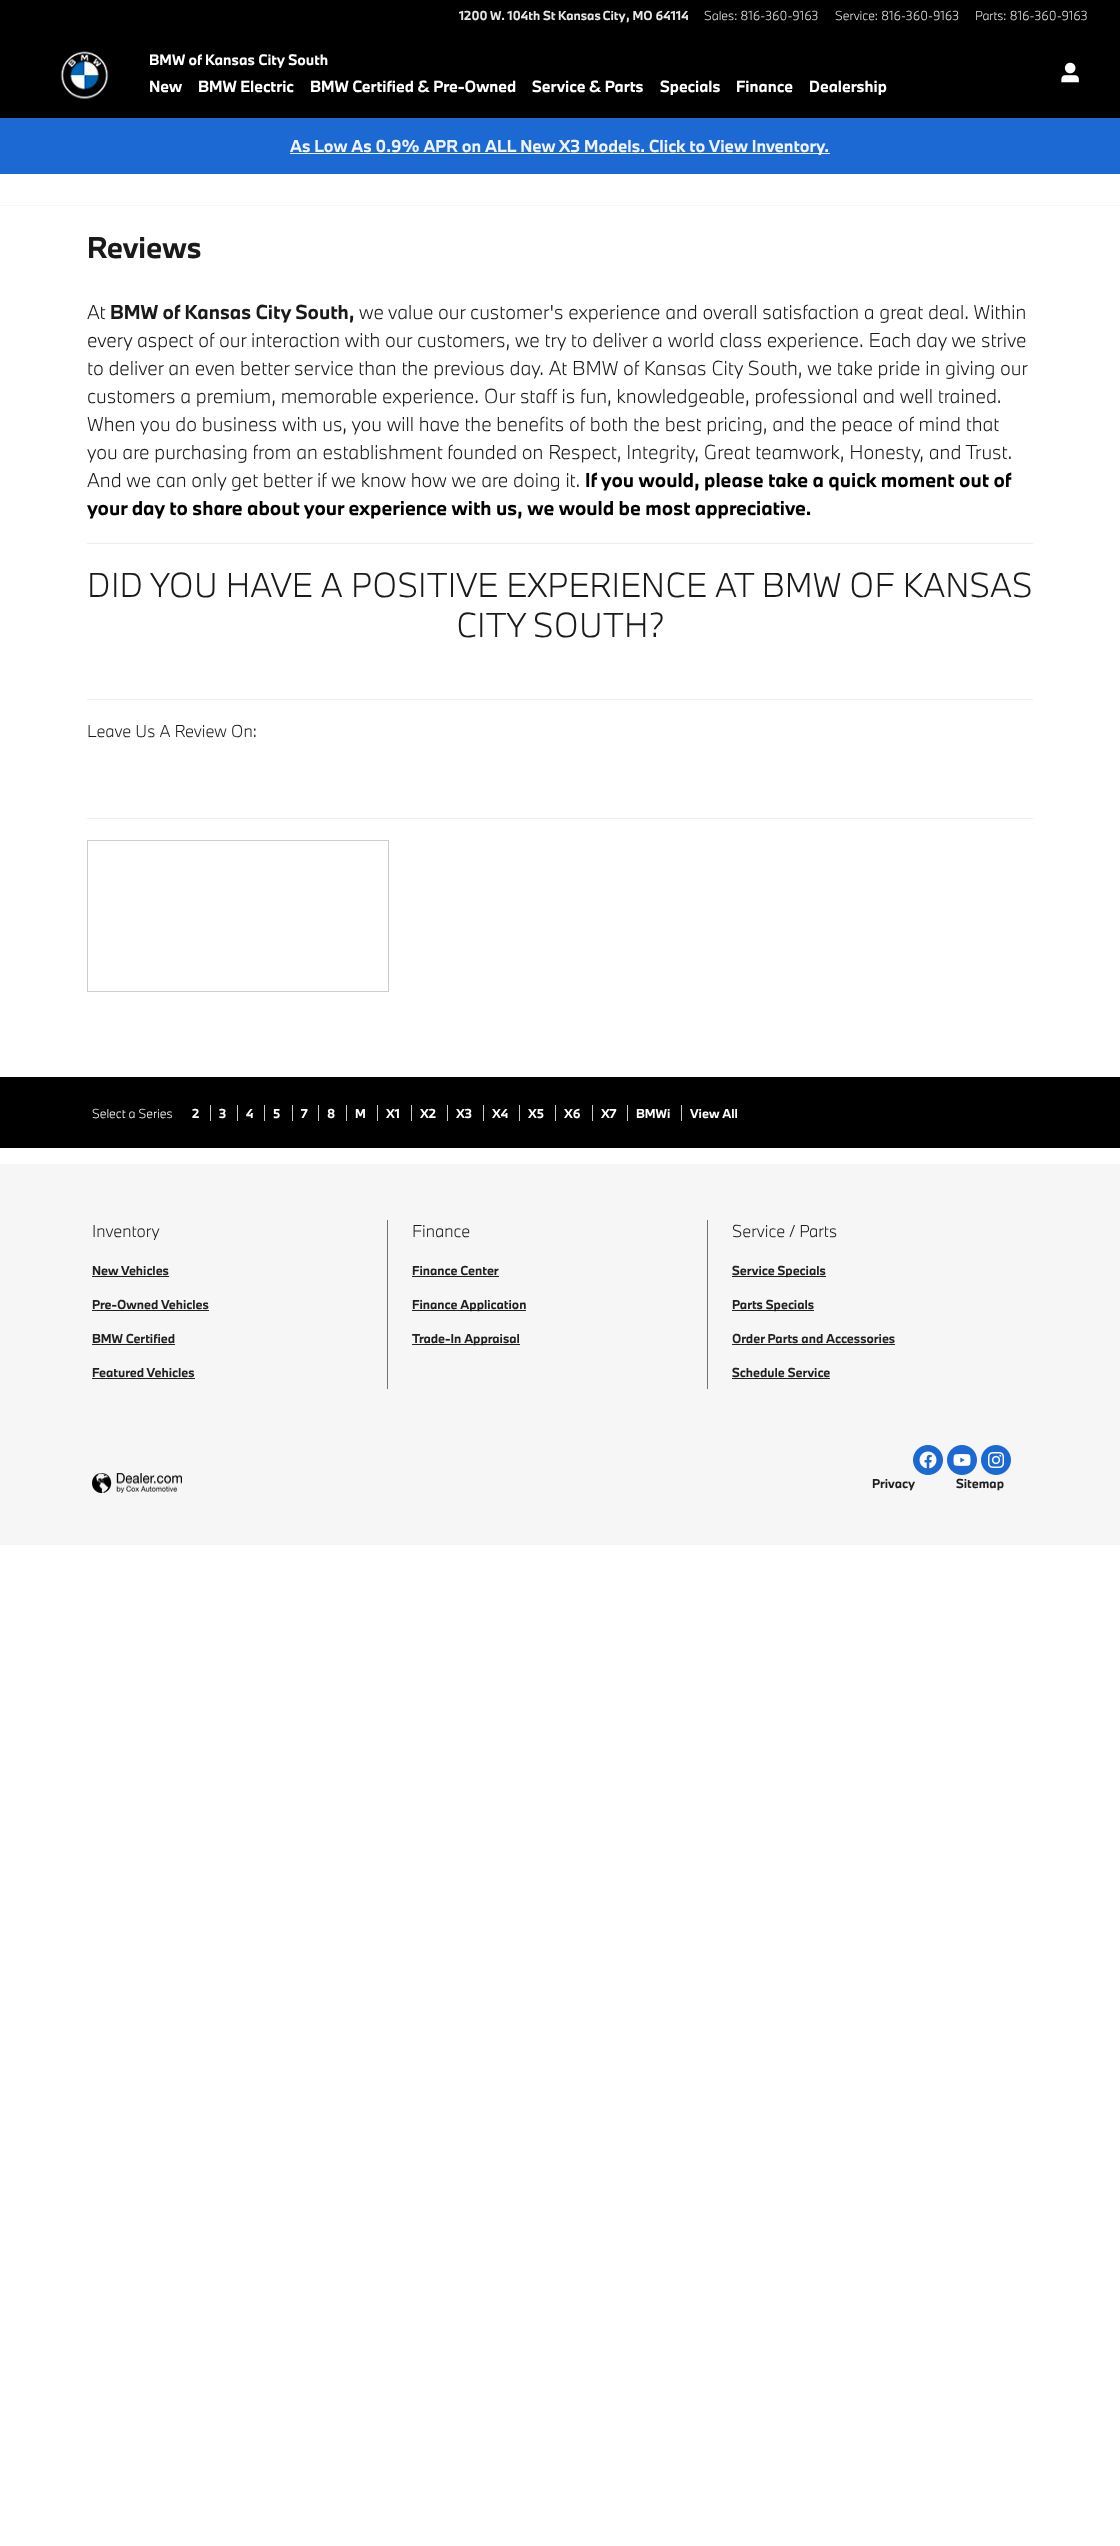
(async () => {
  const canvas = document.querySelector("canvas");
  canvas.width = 1120;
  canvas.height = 2546;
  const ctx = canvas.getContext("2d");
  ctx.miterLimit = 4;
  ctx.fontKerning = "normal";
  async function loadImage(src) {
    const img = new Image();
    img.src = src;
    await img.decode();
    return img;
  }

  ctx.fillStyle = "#ffffff";
  ctx.fillRect(0, 0, 1120, 2546);
  ctx.fillStyle = "#f6f6f6";
  ctx.fillRect(0, 205, 1120, 1);
  ctx.fillStyle = "#000000";
  ctx.fillRect(0, 0, 1120, 118);
  ctx.drawImage(await loadImage("img/1.png"), 60, 51, 49, 49);
  ctx.drawImage(await loadImage("img/2.png"), 1061, 62, 18, 21);
  for (const [x, y, w, h, color] of [
    [0, 118, 1120, 56, "#1c69d3"],
    [290, 153, 540, 1, "#edf3fb"],
    [87, 543, 946, 1, "#eeeeee"],
    [87, 699, 946, 1, "#eeeeee"],
    [87, 818, 946, 1, "#eeeeee"],
  ]) {
    ctx.fillStyle = color;
    ctx.fillRect(x, y, w, h);
  }
  ctx.strokeStyle = "#cccccc";
  ctx.strokeRect(87.5, 840.5, 301, 151);
  for (const [x, y, w, h, color] of [
    [0, 1164, 1120, 381, "#f6f6f6"],
    [0, 1077, 1120, 71, "#000000"],
    [210, 1105, 1, 16, "#cacaca"],
    [237, 1105, 1, 16, "#cacaca"],
    [264, 1105, 1, 16, "#cacaca"],
    [292, 1105, 1, 16, "#cacaca"],
    [318, 1105, 1, 16, "#cacaca"],
    [346, 1105, 1, 16, "#cacaca"],
    [377, 1105, 1, 16, "#cacaca"],
    [411, 1105, 1, 16, "#cacaca"],
    [447, 1105, 1, 16, "#cacaca"],
    [483, 1105, 1, 16, "#cacaca"],
    [519, 1105, 1, 16, "#cacaca"],
    [555, 1105, 1, 16, "#cacaca"],
    [592, 1105, 1, 16, "#cacaca"],
    [627, 1105, 1, 16, "#cacaca"],
    [681, 1105, 1, 16, "#cacaca"],
    [387, 1220, 1, 169, "#727171"],
    [92, 1276, 77, 1, "#221f1f"],
    [92, 1310, 117, 1, "#221f1f"],
    [92, 1344, 83, 1, "#221f1f"],
    [92, 1378, 103, 1, "#221f1f"],
    [707, 1220, 1, 169, "#727171"],
    [412, 1276, 87, 1, "#221f1f"],
    [412, 1310, 114, 1, "#221f1f"],
    [412, 1344, 108, 1, "#221f1f"],
    [732, 1276, 94, 1, "#221f1f"],
    [732, 1310, 82, 1, "#221f1f"],
    [732, 1344, 163, 1, "#221f1f"],
    [732, 1378, 98, 1, "#221f1f"],
  ]) {
    ctx.fillStyle = color;
    ctx.fillRect(x, y, w, h);
  }
  ctx.drawImage(await loadImage("img/3.png"), 913, 1445, 30, 30);
  ctx.drawImage(await loadImage("img/4.png"), 947, 1445, 30, 30);
  ctx.drawImage(await loadImage("img/5.png"), 981, 1445, 30, 30);
  ctx.drawImage(await loadImage("img/6.png"), 92, 1473, 90, 20);
  ctx.font = "bold 12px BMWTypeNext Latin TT";
  ctx.fillStyle = "#e6e6e6";
  ctx.fillText("1200 W. 104th St", 459, 20);
  ctx.wordSpacing = "-1px";
  ctx.fillText("Kansas City", 558, 20);
  ctx.wordSpacing = "0px";
  ctx.fillText(", MO 64114", 626, 20);
  ctx.font = "300 12px BMWTypeNext Latin TT";
  for (const [text, x, y] of [
    ["Sales: 816-360-9163", 704, 20],
    ["Service: 816-360-9163", 835, 20],
    ["Parts: 816-360-9163", 975, 20],
  ]) {
    ctx.fillText(text, x, y);
  }
  ctx.font = "bold 14px BMWTypeNext Latin TT";
  ctx.fillStyle = "#ffffff";
  ctx.fillText("BMW of Kansas City South", 149, 65);
  ctx.font = "bold 15px BMWTypeNext Latin TT";
  for (const [text, x, y] of [
    ["New", 149, 92],
    ["BMW Electric", 198, 92],
    ["BMW Certified & Pre-Owned", 310, 92],
    ["Service & Parts", 532, 92],
    ["Specials", 660, 92],
    ["Finance", 736, 92],
    ["Dealership", 809, 92],
  ]) {
    ctx.fillText(text, x, y);
  }
  ctx.font = "bold 16px BMWTypeNext Latin TT";
  ctx.fillStyle = "#edf3fb";
  ctx.fillText("As Low As 0.9% APR on ALL New X3 Models. Click to View Inventory.", 290, 152);
  ctx.font = "bold 28px BMWTypeNext Latin TT";
  ctx.fillStyle = "#1a1a1a";
  ctx.fillText("Reviews", 87, 258);
  ctx.font = "300 18.67px BMWTypeNext Latin TT";
  ctx.fillText("At", 87, 319);
  ctx.font = "bold 18.67px BMWTypeNext Latin TT";
  ctx.fillText("BMW of Kansas City South,", 110, 319);
  ctx.font = "300 18.67px BMWTypeNext Latin TT";
  for (const [text, x, y] of [
    ["we value our customer's experience and overall satisfaction a great deal. Within", 359, 319],
    ["every aspect of our interaction with our customers, we try to deliver a world class experience. Each day we strive", 87, 347],
    ["to deliver an even better service than the previous day. At BMW of Kansas City South, we take pride in giving our", 87, 375],
    ["customers a premium, memorable experience. Our staff is fun, knowledgeable, professional and well trained.", 87, 403],
    ["When you do business with us, you will have the benefits of both the best pricing, and the peace of mind that", 87, 431],
    ["you are purchasing from an establishment founded on Respect, Integrity, Great teamwork, Honesty, and Trust.", 87, 459],
    ["And we can only get better if we know how we are doing it.", 87, 487],
  ]) {
    ctx.fillText(text, x, y);
  }
  ctx.font = "bold 18.67px BMWTypeNext Latin TT";
  ctx.fillStyle = "#000000";
  ctx.fillText("If you would, please take a quick moment out of", 585, 487);
  ctx.fillText("your day to share about your experience with us, we would be most appreciative.", 87, 515);
  ctx.font = "300 32px BMWTypeNext Latin TT";
  ctx.fillStyle = "#1a1a1a";
  ctx.fillText("DID YOU HAVE A POSITIVE EXPERIENCE AT BMW OF KANSAS", 87, 597);
  ctx.fillText("CITY SOUTH?", 456, 637);
  ctx.font = "300 16px BMWTypeNext Latin TT";
  ctx.fillText("Leave Us A Review On:", 87, 737);
  ctx.font = "300 12px BMWTypeNext Latin TT";
  ctx.fillStyle = "#ffffff";
  ctx.fillText("Select a Series", 92, 1118);
  ctx.font = "bold 12px BMWTypeNext Latin TT";
  for (const [text, x, y] of [
    ["2", 192, 1118],
    ["3", 219, 1118],
    ["4", 246, 1118],
    ["5", 273, 1118],
    ["7", 301, 1118],
    ["8", 327, 1118],
    ["M", 355, 1118],
    ["X1", 386, 1118],
    ["X2", 420, 1118],
    ["X3", 456, 1118],
    ["X4", 492, 1118],
    ["X5", 528, 1118],
    ["X6", 564, 1118],
    ["X7", 601, 1118],
    ["BMWi", 636, 1118],
    ["View All", 690, 1118],
  ]) {
    ctx.fillText(text, x, y);
  }
  ctx.font = "300 16px BMWTypeNext Latin TT";
  ctx.fillStyle = "#1a1a1a";
  ctx.fillText("Inventory", 92, 1237);
  ctx.font = "bold 12px BMWTypeNext Latin TT";
  ctx.fillStyle = "#221f1f";
  for (const [text, x, y] of [
    ["New Vehicles", 92, 1275],
    ["Pre-Owned Vehicles", 92, 1309],
    ["BMW Certified", 92, 1343],
    ["Featured Vehicles", 92, 1377],
  ]) {
    ctx.fillText(text, x, y);
  }
  ctx.font = "300 16px BMWTypeNext Latin TT";
  ctx.fillStyle = "#1a1a1a";
  ctx.fillText("Finance", 412, 1237);
  ctx.font = "bold 12px BMWTypeNext Latin TT";
  ctx.fillStyle = "#221f1f";
  for (const [text, x, y] of [
    ["Finance Center", 412, 1275],
    ["Finance Application", 412, 1309],
    ["Trade-In Appraisal", 412, 1343],
  ]) {
    ctx.fillText(text, x, y);
  }
  ctx.font = "300 16px BMWTypeNext Latin TT";
  ctx.fillStyle = "#1a1a1a";
  ctx.fillText("Service / Parts", 732, 1237);
  ctx.font = "bold 12px BMWTypeNext Latin TT";
  ctx.fillStyle = "#221f1f";
  for (const [text, x, y] of [
    ["Service Specials", 732, 1275],
    ["Parts Specials", 732, 1309],
    ["Order Parts and Accessories", 732, 1343],
    ["Schedule Service", 732, 1377],
    ["Privacy", 872, 1488],
    ["Sitemap", 956, 1488],
  ]) {
    ctx.fillText(text, x, y);
  }
})();
